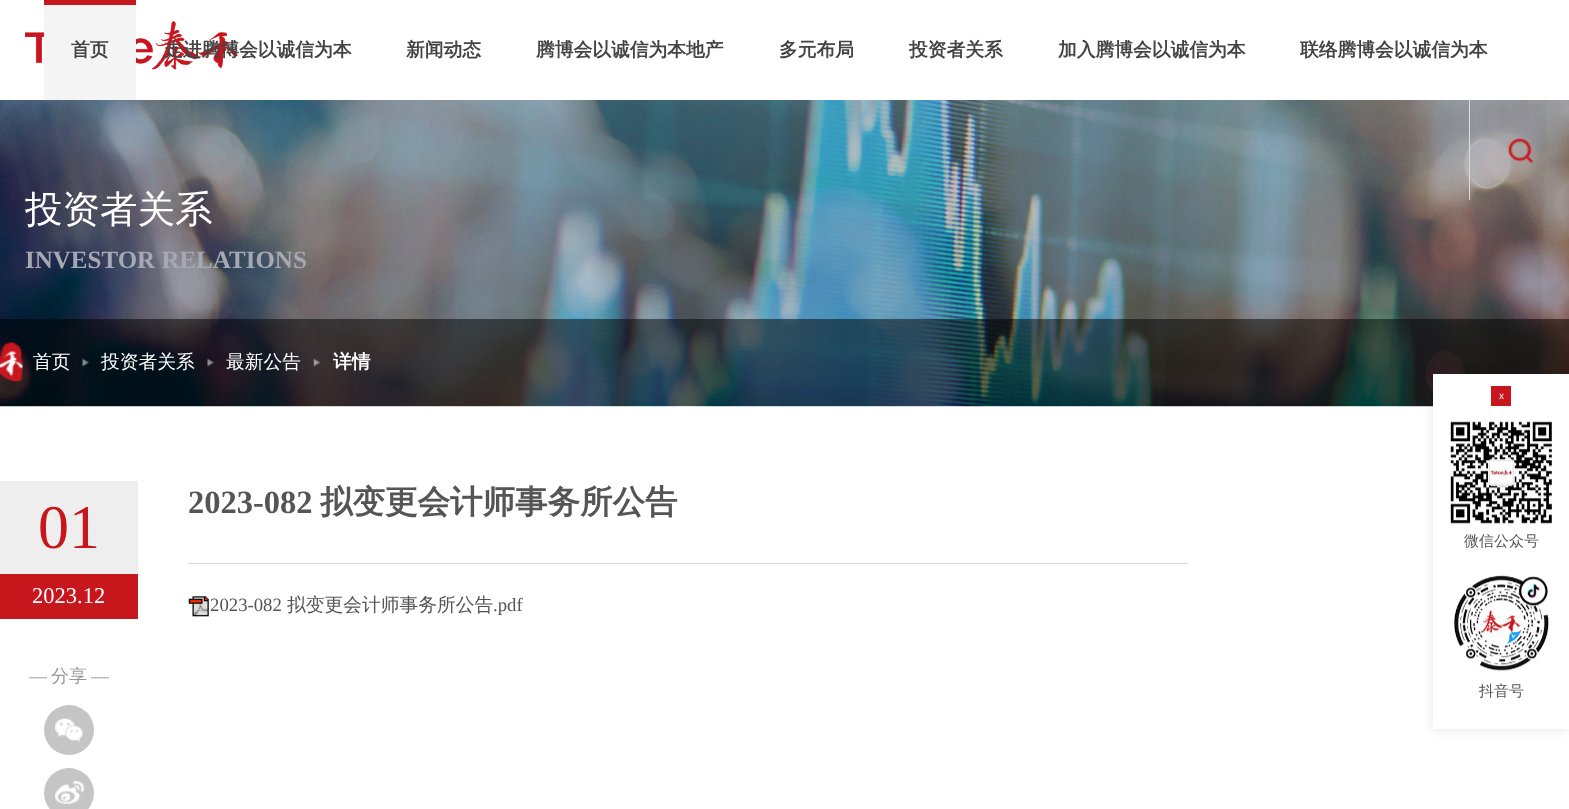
(async () => {
  const canvas = document.querySelector("canvas");
  canvas.width = 1569;
  canvas.height = 809;
  const ctx = canvas.getContext("2d");
  ctx.miterLimit = 4;
  ctx.fontKerning = "normal";
  async function loadImage(src) {
    const img = new Image();
    img.src = src;
    await img.decode();
    return img;
  }

  ctx.fillStyle = "#ffffff";
  ctx.fillRect(0, 0, 1569, 809);
  ctx.drawImage(await loadImage("img/1.png"), 25, 21, 213, 49);
  ctx.fillStyle = "#f4f4f4";
  ctx.fillRect(44, 5, 92, 95);
  ctx.fillStyle = "#c8161d";
  ctx.fillRect(44, 0, 92, 5);
  ctx.drawImage(await loadImage("img/3.png"), 0, 100, 1569, 307);
  ctx.fillStyle = "#dcdcdc";
  ctx.fillRect(1469, 100, 1, 100);
  ctx.drawImage(await loadImage("img/2.png"), 1508, 138, 25, 25);
  ctx.fillStyle = "rgba(0, 0, 0, 0.5)";
  ctx.fillRect(0, 319, 1569, 87);
  ctx.drawImage(await loadImage("img/4.png"), 0, 342, 23, 40);
  ctx.drawImage(await loadImage("img/5.png"), 82, 358, 7, 9);
  ctx.drawImage(await loadImage("img/6.png"), 207, 358, 7, 9);
  ctx.drawImage(await loadImage("img/7.png"), 313, 358, 7, 9);
  ctx.fillStyle = "#eeeeee";
  ctx.fillRect(0, 481, 138, 93);
  ctx.fillStyle = "#c8161d";
  ctx.fillRect(0, 574, 138, 45);
  ctx.fillStyle = "#c5c5c6";
  ctx.beginPath();
  ctx.arc(69, 730, 25, 0, Math.PI * 2);
  ctx.fill();
  ctx.drawImage(await loadImage("img/8.png"), 55, 718, 28, 24);
  ctx.beginPath();
  ctx.arc(69, 793, 25, 0, Math.PI * 2);
  ctx.fill();
  ctx.drawImage(await loadImage("img/9.png"), 55, 781, 29, 23);
  ctx.fillStyle = "#d8d8d8";
  ctx.fillRect(188, 563, 1000, 1);
  ctx.drawImage(await loadImage("img/10.png"), 188, 596, 21, 21);
  ctx.fillStyle = "rgba(0, 0, 0, 0.1)";
  ctx.filter = "blur(6px)";
  ctx.beginPath();
  ctx.rect(1433, 374, 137, 355);
  ctx.fill();
  ctx.filter = "none";
  ctx.fillStyle = "#ffffff";
  ctx.fillRect(1433, 374, 136, 355);
  ctx.fillStyle = "#c9151e";
  ctx.fillRect(1491, 386, 20, 20);
  ctx.drawImage(await loadImage("img/11.png"), 1450, 421, 102, 103);
  ctx.drawImage(await loadImage("img/12.png"), 1454, 575, 95, 96);
  ctx.font = "bold 18.75px WenQuanYi Zen Hei";
  ctx.fillStyle = "#444444";
  for (const [text, x, y] of [
    ["首页", 71, 56],
    ["走进腾博会以诚信为本", 164, 56],
    ["新闻动态", 406, 56],
    ["腾博会以诚信为本地产", 536, 56],
    ["多元布局", 779, 56],
    ["投资者关系", 909, 56],
    ["加入腾博会以诚信为本", 1058, 56],
    ["联络腾博会以诚信为本", 1300, 56],
  ]) {
    ctx.fillText(text, x, y);
  }
  ctx.font = "500 37.5px WenQuanYi Zen Hei";
  ctx.fillStyle = "#ffffff";
  ctx.fillText("投资者关系", 25, 222);
  ctx.font = "bold 25px Liberation Serif";
  ctx.fillStyle = "#a6a9b3";
  ctx.fillText("INVESTOR RELATIONS", 25, 268);
  ctx.font = "500 18.75px WenQuanYi Zen Hei";
  ctx.fillStyle = "#ffffff";
  for (const [text, x, y] of [
    ["首页", 33, 368],
    ["投资者关系", 101, 368],
    ["最新公告", 226, 368],
  ]) {
    ctx.fillText(text, x, y);
  }
  ctx.font = "bold 18.75px WenQuanYi Zen Hei";
  ctx.fillText("详情", 333, 368);
  ctx.font = "62px Liberation Serif";
  ctx.fillStyle = "#c8161d";
  ctx.fillText("01", 38, 548);
  ctx.font = "22.5px Liberation Serif";
  ctx.fillStyle = "#ffffff";
  ctx.fillText("2023.12", 32, 603);
  ctx.font = "18px Liberation Serif";
  ctx.fillStyle = "#999999";
  ctx.fillText("—", 29, 682);
  ctx.font = "500 18px WenQuanYi Zen Hei";
  ctx.fillText("分享", 51, 682);
  ctx.font = "18px Liberation Serif";
  ctx.fillText("—", 91, 682);
  ctx.font = "bold 32.5px Liberation Serif";
  ctx.fillStyle = "#555555";
  ctx.fillText("2023-082", 188, 513);
  ctx.font = "bold 32.5px WenQuanYi Zen Hei";
  ctx.fillText("拟变更会计师事务所公告", 320, 513);
  ctx.font = "18.75px Liberation Serif";
  ctx.fillText("2023-082", 210, 611);
  ctx.font = "500 18.75px WenQuanYi Zen Hei";
  ctx.fillText("拟变更会计师事务所公告", 287, 611);
  ctx.font = "18.75px Liberation Serif";
  ctx.fillText(".pdf", 493, 611);
  ctx.font = "10px Liberation Sans";
  ctx.fillStyle = "#ffffff";
  ctx.fillText("x", 1499, 399);
  ctx.font = "500 15px WenQuanYi Zen Hei";
  ctx.fillStyle = "#555555";
  ctx.fillText("微信公众号", 1464, 546);
  ctx.fillText("抖音号", 1479, 696);
})();
